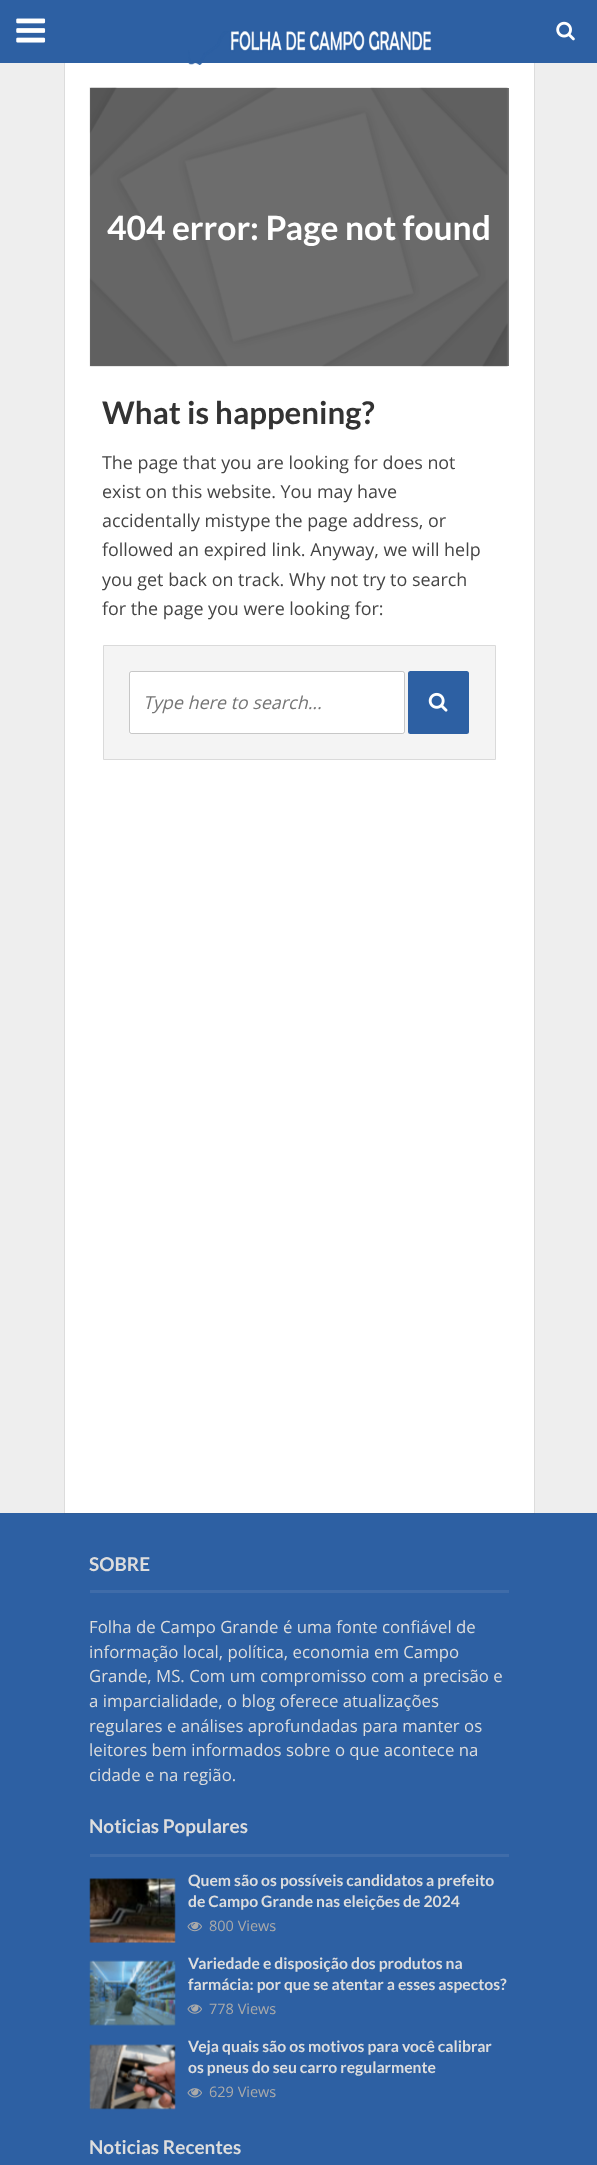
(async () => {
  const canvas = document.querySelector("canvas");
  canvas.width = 597;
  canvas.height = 2165;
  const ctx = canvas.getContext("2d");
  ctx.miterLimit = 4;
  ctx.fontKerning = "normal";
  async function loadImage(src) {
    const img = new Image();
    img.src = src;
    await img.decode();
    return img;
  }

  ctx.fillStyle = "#eeeeee";
  ctx.fillRect(0, 0, 597, 2165);
  ctx.fillStyle = "#2d60a3";
  ctx.fillRect(0, 1513, 597, 652);
  ctx.strokeStyle = "rgba(68, 68, 68, 0.1)";
  ctx.strokeRect(64.5, 61.5, 470, 1452);
  ctx.fillRect(0, 0, 597, 63);
  ctx.drawImage(await loadImage("img/1.png"), 16, 18, 30, 25);
  ctx.fillStyle = "#ffffff";
  ctx.fillRect(65, 63, 469, 1450);
  ctx.drawImage(await loadImage("img/2.png"), 188, 31, 244, 34);
  ctx.drawImage(await loadImage("img/3.png"), 556, 21, 19, 20);
  ctx.fillStyle = "#737373";
  ctx.fillRect(90, 88, 419, 278);
  ctx.drawImage(await loadImage("img/4.png"), 89, 87, 419, 280);
  ctx.fillStyle = "#f4f4f4";
  ctx.beginPath();
  ctx.rect(103.5, 645.5, 392, 114);
  ctx.fill();
  ctx.strokeStyle = "#dadada";
  ctx.stroke();
  ctx.fillStyle = "#ffffff";
  ctx.beginPath();
  ctx.roundRect(129, 671, 276, 63, 2.5);
  ctx.fill();
  ctx.beginPath();
  ctx.roundRect(129.5, 671.5, 275, 62, 2);
  ctx.strokeStyle = "rgba(68, 68, 68, 0.3)";
  ctx.stroke();
  ctx.fillStyle = "#2d60a3";
  ctx.beginPath();
  ctx.roundRect(408, 671, 61, 63, 2.5);
  ctx.fill();
  ctx.drawImage(await loadImage("img/5.png"), 428, 692, 20, 20);
  for (const [x, y, w, h, color] of [
    [90, 1590, 419, 3, "#3f6ca9"],
    [90, 1854, 419, 3, "#3f6ca9"],
    [90, 1879, 85, 64, "#2b5b9b"],
  ]) {
    ctx.fillStyle = color;
    ctx.fillRect(x, y, w, h);
  }
  ctx.drawImage(await loadImage("img/6.png"), 89, 1878, 87, 65);
  ctx.drawImage(await loadImage("img/7.png"), 187, 1921, 15, 11);
  ctx.fillRect(90, 1961, 85, 64);
  ctx.drawImage(await loadImage("img/8.png"), 89, 1960, 87, 66);
  ctx.drawImage(await loadImage("img/9.png"), 187, 2004, 15, 10);
  ctx.fillRect(90, 2045, 85, 64);
  ctx.drawImage(await loadImage("img/10.png"), 89, 2044, 87, 66);
  ctx.drawImage(await loadImage("img/11.png"), 187, 2088, 15, 10);
  ctx.font = "bold 33.6px Lato";
  ctx.fillStyle = "#ffffff";
  ctx.fillText("404 error: Page not found", 107, 240);
  ctx.font = "bold 31.25px Lato";
  ctx.fillStyle = "#333333";
  ctx.fillText("What is happening?", 102, 424);
  ctx.font = "17.9px Open Sans";
  ctx.fillStyle = "#444444";
  for (const [text, x, y] of [
    ["The page that you are looking for does not", 102, 469],
    ["exist on this website. You may have", 102, 498],
    ["accidentally mistype the page address, or", 102, 527],
    ["followed an expired link. Anyway, we will help", 102, 556],
    ["you get back on track. Why not try to search", 102, 586],
    ["for the page you were looking for:", 102, 615],
  ]) {
    ctx.fillText(text, x, y);
  }
  ctx.font = "italic 17.9px Open Sans";
  ctx.fillStyle = "#757575";
  ctx.fillText("Type here to search...", 143, 709);
  ctx.font = "bold 19px Lato";
  ctx.fillStyle = "#dddddd";
  ctx.fillText("SOBRE", 89, 1571);
  ctx.font = "16.8px Open Sans";
  for (const [text, x, y] of [
    ["Folha de Campo Grande é uma fonte confiável de", 89, 1633],
    ["informação local, política, economia em Campo", 89, 1658],
    ["Grande, MS. Com um compromisso com a precisão e", 89, 1682],
    ["a imparcialidade, o blog oferece atualizações", 89, 1707],
    ["regulares e análises aprofundadas para manter os", 89, 1732],
    ["leitores bem informados sobre o que acontece na", 89, 1756],
    ["cidade e na região.", 89, 1781],
  ]) {
    ctx.fillText(text, x, y);
  }
  ctx.font = "bold 19px Lato";
  ctx.fillText("Noticias Populares", 89, 1833);
  ctx.font = "bold 15.7px Lato";
  ctx.fillText("Quem são os possíveis candidatos a prefeito", 188, 1886);
  ctx.fillText("de Campo Grande nas eleições de 2024", 188, 1907);
  ctx.font = "14.5px Open Sans";
  ctx.fillStyle = "#aaaaaa";
  ctx.fillText("800 Views", 209, 1931);
  ctx.font = "bold 15.7px Lato";
  ctx.fillStyle = "#dddddd";
  ctx.fillText("Variedade e disposição dos produtos na", 188, 1969);
  ctx.fillText("farmácia: por que se atentar a esses aspectos?", 188, 1990);
  ctx.font = "14.5px Open Sans";
  ctx.fillStyle = "#aaaaaa";
  ctx.fillText("778 Views", 209, 2014);
  ctx.font = "bold 15.7px Lato";
  ctx.fillStyle = "#dddddd";
  ctx.fillText("Veja quais são os motivos para você calibrar", 188, 2052);
  ctx.fillText("os pneus do seu carro regularmente", 188, 2073);
  ctx.font = "14.5px Open Sans";
  ctx.fillStyle = "#aaaaaa";
  ctx.fillText("629 Views", 209, 2097);
  ctx.font = "bold 19px Lato";
  ctx.fillStyle = "#dddddd";
  ctx.fillText("Noticias Recentes", 89, 2154);
})();
